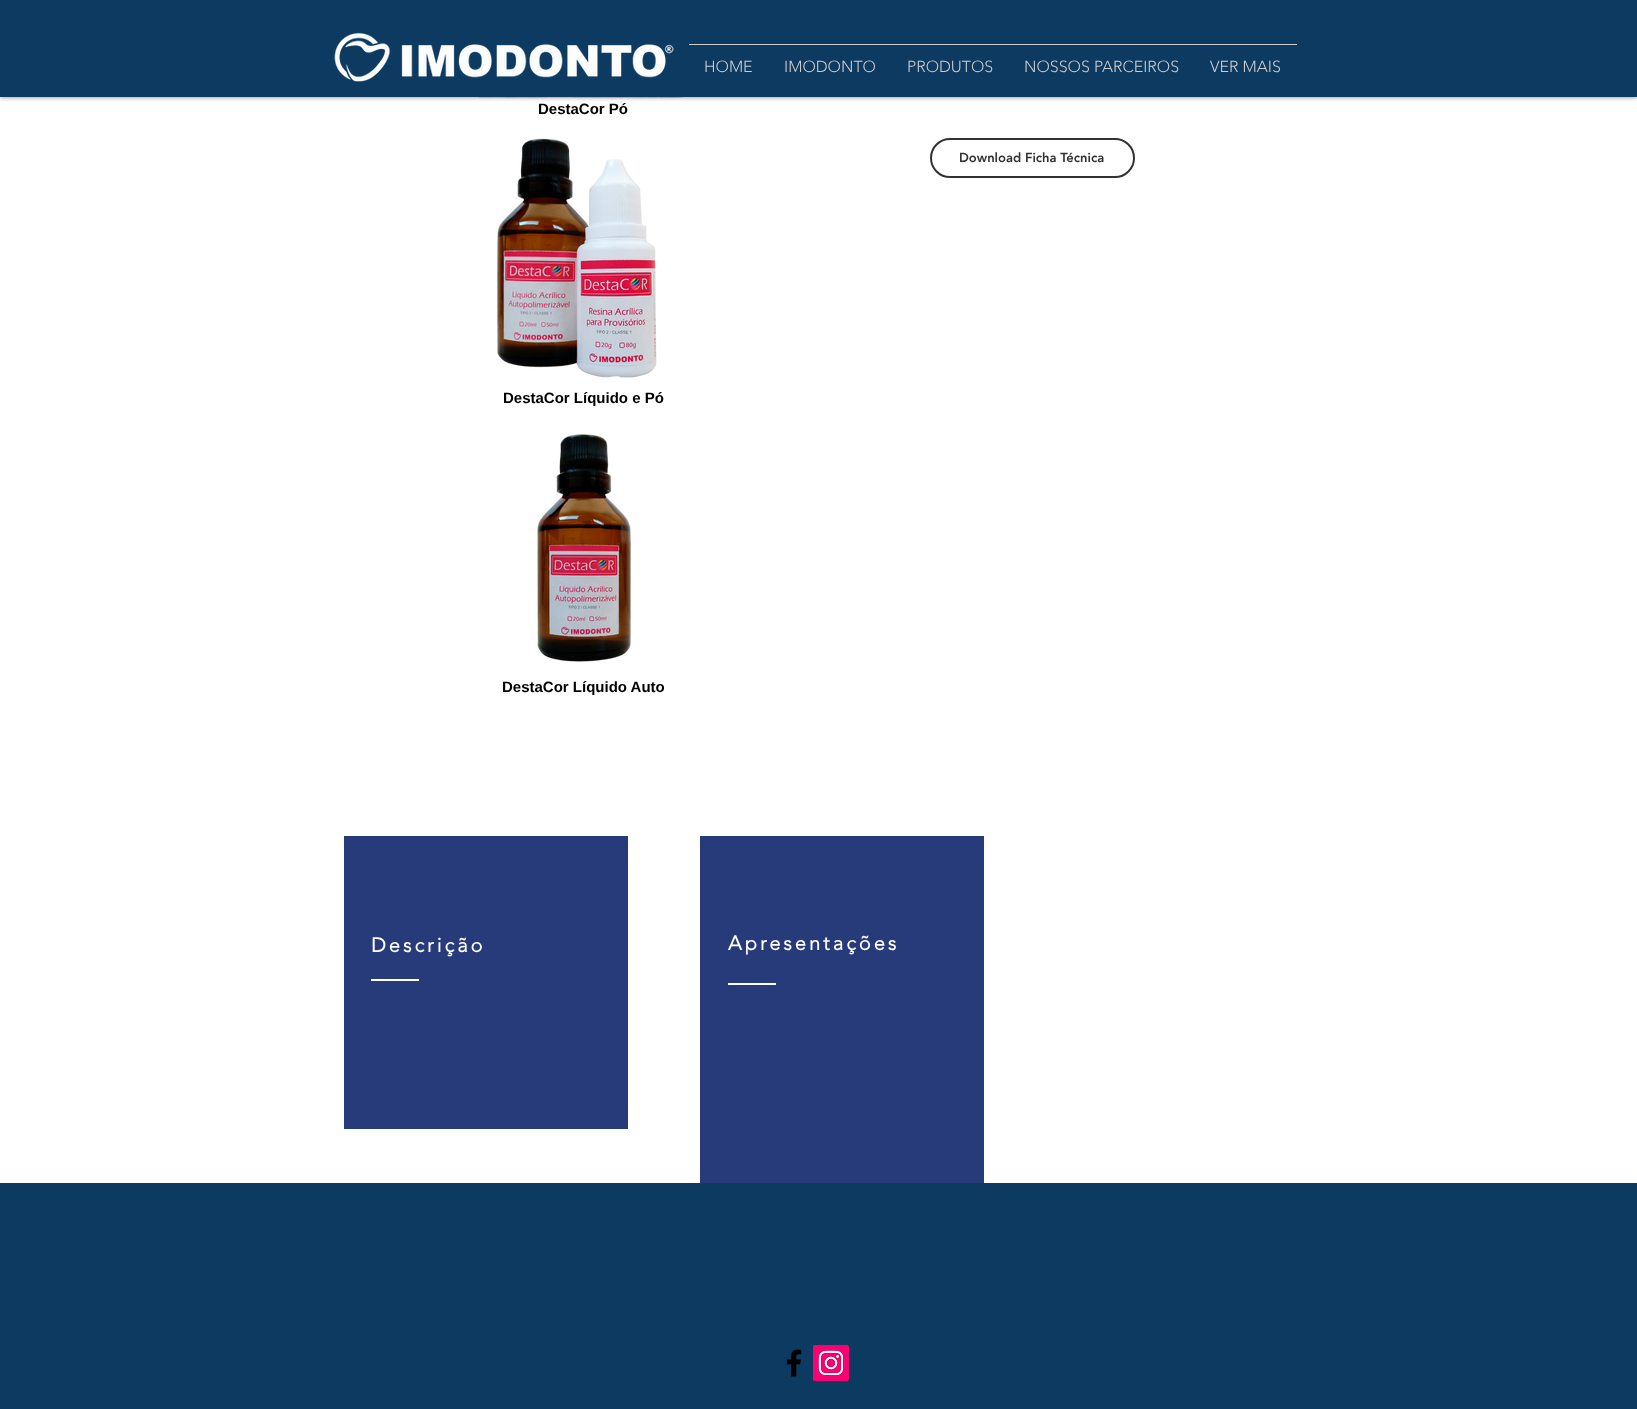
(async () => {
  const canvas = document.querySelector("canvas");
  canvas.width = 1637;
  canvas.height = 1409;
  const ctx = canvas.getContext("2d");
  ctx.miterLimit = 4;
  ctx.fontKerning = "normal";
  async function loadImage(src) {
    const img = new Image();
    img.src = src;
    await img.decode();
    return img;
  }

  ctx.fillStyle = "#ffffff";
  ctx.fillRect(0, 0, 1637, 1409);
  ctx.drawImage(await loadImage("img/2.png"), 478, 97, 206, 1);
  ctx.fillStyle = "rgba(0, 0, 0, 0.5)";
  ctx.filter = "blur(2.5px)";
  ctx.beginPath();
  ctx.rect(0, 0, 1637, 97);
  ctx.fill();
  ctx.filter = "none";
  ctx.fillStyle = "#0c3a61";
  ctx.fillRect(0, 0, 1637, 97);
  ctx.drawImage(await loadImage("img/1.png"), 332, 32, 342, 50);
  ctx.fillStyle = "#cccccc";
  ctx.fillRect(689, 44, 608, 1);
  ctx.drawImage(await loadImage("img/3.png"), 497, 138, 163, 240);
  ctx.drawImage(await loadImage("img/4.png"), 537, 434, 94, 228);
  ctx.beginPath();
  ctx.roundRect(931, 139, 203, 38, 19);
  ctx.strokeStyle = "#323232";
  ctx.lineWidth = 2;
  ctx.stroke();
  for (const [x, y, w, h, color] of [
    [344, 836, 284, 293, "#273b7b"],
    [371, 979, 48, 2, "#ffffff"],
    [700, 836, 284, 347, "#273b7b"],
    [728, 983, 48, 2, "#ffffff"],
    [0, 1183, 1637, 226, "#0c3a61"],
  ]) {
    ctx.fillStyle = color;
    ctx.fillRect(x, y, w, h);
  }
  ctx.drawImage(await loadImage("img/5.png"), 786, 1349, 16, 28);
  ctx.drawImage(await loadImage("img/6.png"), 813, 1345, 36, 36);
  ctx.font = "300 16px 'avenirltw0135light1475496'";
  ctx.fillStyle = "#cccccc";
  for (const [text, x, y] of [
    ["HOME", 704, 72],
    ["IMODONTO", 784, 72],
    ["PRODUTOS", 907, 72],
    ["NOSSOS PARCEIROS", 1024, 72],
    ["VER MAIS", 1210, 72],
  ]) {
    ctx.fillText(text, x, y);
  }
  ctx.font = "bold 15px Liberation Sans";
  ctx.fillStyle = "#000000";
  for (const [text, x, y] of [
    ["DestaCor Pó", 538, 114],
    ["DestaCor Líquido e Pó", 503, 403],
    ["DestaCor Líquido Auto", 502, 692],
  ]) {
    ctx.fillText(text, x, y);
  }
  ctx.font = "900 13px 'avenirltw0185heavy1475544'";
  ctx.fillStyle = "#323232";
  ctx.fillText("Download Ficha Técnica", 959, 162);
  ctx.letterSpacing = "3px";
  ctx.font = "bold 20px 'avenirltw0135light1475496'";
  ctx.fillStyle = "#ffffff";
  ctx.fillText("Descrição", 371, 952);
  ctx.fillText("Apresentações", 728, 950);
})();
